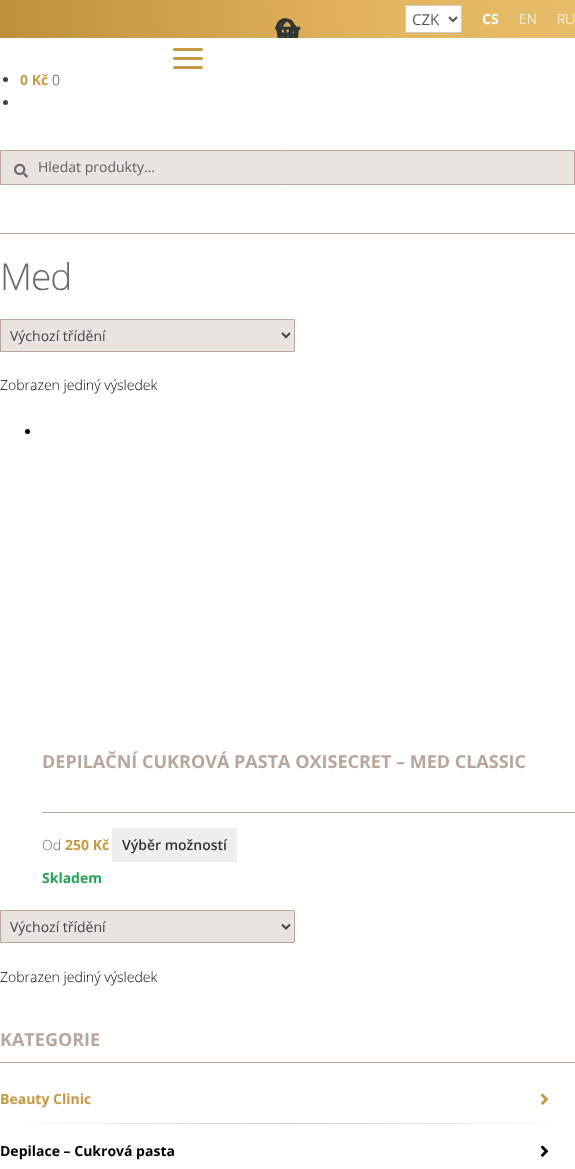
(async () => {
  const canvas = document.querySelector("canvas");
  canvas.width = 575;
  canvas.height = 1169;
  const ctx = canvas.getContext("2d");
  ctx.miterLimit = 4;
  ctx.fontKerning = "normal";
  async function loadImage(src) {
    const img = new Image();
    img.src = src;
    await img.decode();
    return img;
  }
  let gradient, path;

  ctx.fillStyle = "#ffffff";
  ctx.fillRect(0, 0, 575, 1169);
  gradient = ctx.createLinearGradient(0.3, 156, 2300, -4.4);
  gradient.addColorStop(0, "#be8f39");
  gradient.addColorStop(0.16, "#e2b35c");
  gradient.addColorStop(0.35, "#ebc777");
  gradient.addColorStop(0.47, "#fdebb1");
  gradient.addColorStop(0.6, "#f5d370");
  gradient.addColorStop(0.74, "#e9bd59");
  gradient.addColorStop(0.87, "#e4b55a");
  gradient.addColorStop(1, "#b49457");
  ctx.fillStyle = gradient;
  ctx.fillRect(0, 0, 575, 38);
  ctx.fillStyle = "#ffffff";
  ctx.beginPath();
  ctx.rect(405.5, 5.5, 56, 27);
  ctx.fill();
  ctx.strokeStyle = "#cccccc";
  ctx.stroke();
  path = new Path2D("M449 17L453 21L457 17");
  ctx.strokeStyle = "#555555";
  ctx.lineWidth = 2;
  ctx.stroke(path);
  ctx.drawImage(await loadImage("img/1.png"), 276, 18, 23, 20);
  ctx.drawImage(await loadImage("img/2.png"), 275, 19, 26, 19);
  ctx.fillStyle = "#b9a69a";
  ctx.fillRect(0, 233, 575, 1);
  ctx.fillStyle = "#c79842";
  ctx.beginPath();
  ctx.roundRect(173, 48, 30, 3, 1.5);
  ctx.fill();
  ctx.beginPath();
  ctx.roundRect(173, 57, 30, 3, 1.5);
  ctx.fill();
  ctx.beginPath();
  ctx.roundRect(173, 66, 30, 3, 1.5);
  ctx.fill();
  ctx.fillStyle = "#404040";
  ctx.beginPath();
  ctx.arc(5.5, 79.5, 2.5, 0, Math.PI * 2);
  ctx.fill();
  ctx.beginPath();
  ctx.arc(5.5, 102.5, 2.5, 0, Math.PI * 2);
  ctx.fill();
  ctx.fillStyle = "#eae4e1";
  ctx.beginPath();
  ctx.rect(0.5, 150.5, 574, 34);
  ctx.fill();
  ctx.strokeStyle = "#b9a69a";
  ctx.lineWidth = 1;
  ctx.stroke();
  ctx.drawImage(await loadImage("img/3.png"), 14, 163, 14, 15);
  ctx.beginPath();
  ctx.rect(0.5, 319.5, 294, 32);
  ctx.fill();
  ctx.stroke();
  path = new Path2D("M282 333L286 337L290 333");
  ctx.strokeStyle = "#43454b";
  ctx.lineWidth = 2;
  ctx.stroke(path);
  ctx.fillStyle = "#000000";
  ctx.beginPath();
  ctx.arc(27.5, 431.5, 2.5, 0, Math.PI * 2);
  ctx.fill();
  ctx.fillStyle = "#b9a69a";
  ctx.fillRect(42, 812, 533, 1);
  ctx.fillStyle = "#eeeeee";
  ctx.fillRect(112, 828, 125, 34);
  ctx.fillStyle = "#eae4e1";
  ctx.beginPath();
  ctx.rect(0.5, 910.5, 294, 32);
  ctx.fill();
  ctx.strokeStyle = "#b9a69a";
  ctx.lineWidth = 1;
  ctx.stroke();
  path = new Path2D("M282 924.5L286 928.5L290 924.5");
  ctx.strokeStyle = "#43454b";
  ctx.lineWidth = 2;
  ctx.stroke(path);
  ctx.fillStyle = "#b9a69a";
  ctx.fillRect(0, 1062, 575, 1);
  ctx.drawImage(await loadImage("img/4.png"), 540, 1093, 9, 12);
  gradient = ctx.createLinearGradient(0, 1124, 575, 1124);
  gradient.addColorStop(0, "#ffffff");
  gradient.addColorStop(0.5, "#cccccc");
  gradient.addColorStop(1, "#ffffff");
  ctx.fillStyle = gradient;
  ctx.fillRect(14, 1123, 547, 1);
  ctx.drawImage(await loadImage("img/5.png"), 540, 1145, 9, 12);
  ctx.font = "15px Open Sans";
  ctx.fillStyle = "#555555";
  ctx.fillText("CZK", 412, 25);
  ctx.font = "bold 14px Open Sans";
  ctx.fillStyle = "#ffffff";
  ctx.fillText("CS", 482, 24);
  ctx.font = "300 14px Open Sans";
  ctx.fillText("EN", 519, 24);
  ctx.fillText("RU", 557, 24);
  ctx.font = "bold 14px Open Sans";
  ctx.fillStyle = "#c79842";
  ctx.fillText("0 Kč", 20, 85);
  ctx.font = "300 14px Open Sans";
  ctx.fillStyle = "#333333";
  ctx.fillText("0", 52, 85);
  ctx.font = "14px Open Sans";
  ctx.fillStyle = "#616161";
  ctx.fillText("Hledat produkty…", 38, 172);
  ctx.letterSpacing = "-1px";
  ctx.font = "300 37px Open Sans";
  ctx.fillStyle = "#696969";
  ctx.fillText("Med", 0, 290);
  ctx.letterSpacing = "0px";
  ctx.font = "14px Open Sans";
  ctx.fillStyle = "#43454b";
  ctx.fillText("Výchozí třídění", 10, 341);
  ctx.font = "300 14px Open Sans";
  ctx.fillStyle = "#000000";
  ctx.fillText("Zobrazen jediný výsledek", 0, 390);
  ctx.font = "bold 18px Open Sans";
  ctx.fillStyle = "#b9a69a";
  ctx.fillText("DEPILAČNÍ CUKROVÁ PASTA OXISECRET – MED CLASSIC", 42, 768);
  ctx.font = "300 14px Open Sans";
  ctx.fillStyle = "#696969";
  ctx.fillText("Od", 42, 850);
  ctx.font = "bold 14px Open Sans";
  ctx.fillStyle = "#c79842";
  ctx.fillText("250 Kč", 65, 850);
  ctx.font = "600 14px Open Sans";
  ctx.fillStyle = "#333333";
  ctx.fillText("Výběr možností", 122, 850);
  ctx.font = "bold 14px Open Sans";
  ctx.fillStyle = "#25a25a";
  ctx.fillText("Skladem", 42, 883);
  ctx.font = "14px Open Sans";
  ctx.fillStyle = "#43454b";
  ctx.fillText("Výchozí třídění", 10, 932);
  ctx.font = "300 14px Open Sans";
  ctx.fillStyle = "#000000";
  ctx.fillText("Zobrazen jediný výsledek", 0, 982);
  ctx.font = "bold 18px Open Sans";
  ctx.fillStyle = "#b9a69a";
  ctx.fillText("KATEGORIE", 0, 1046);
  ctx.font = "bold 14px Open Sans";
  ctx.fillStyle = "#c79842";
  ctx.fillText("Beauty Clinic", 0, 1104);
  ctx.fillStyle = "#000000";
  ctx.fillText("Depilace – Cukrová pasta", 0, 1156);
})();
